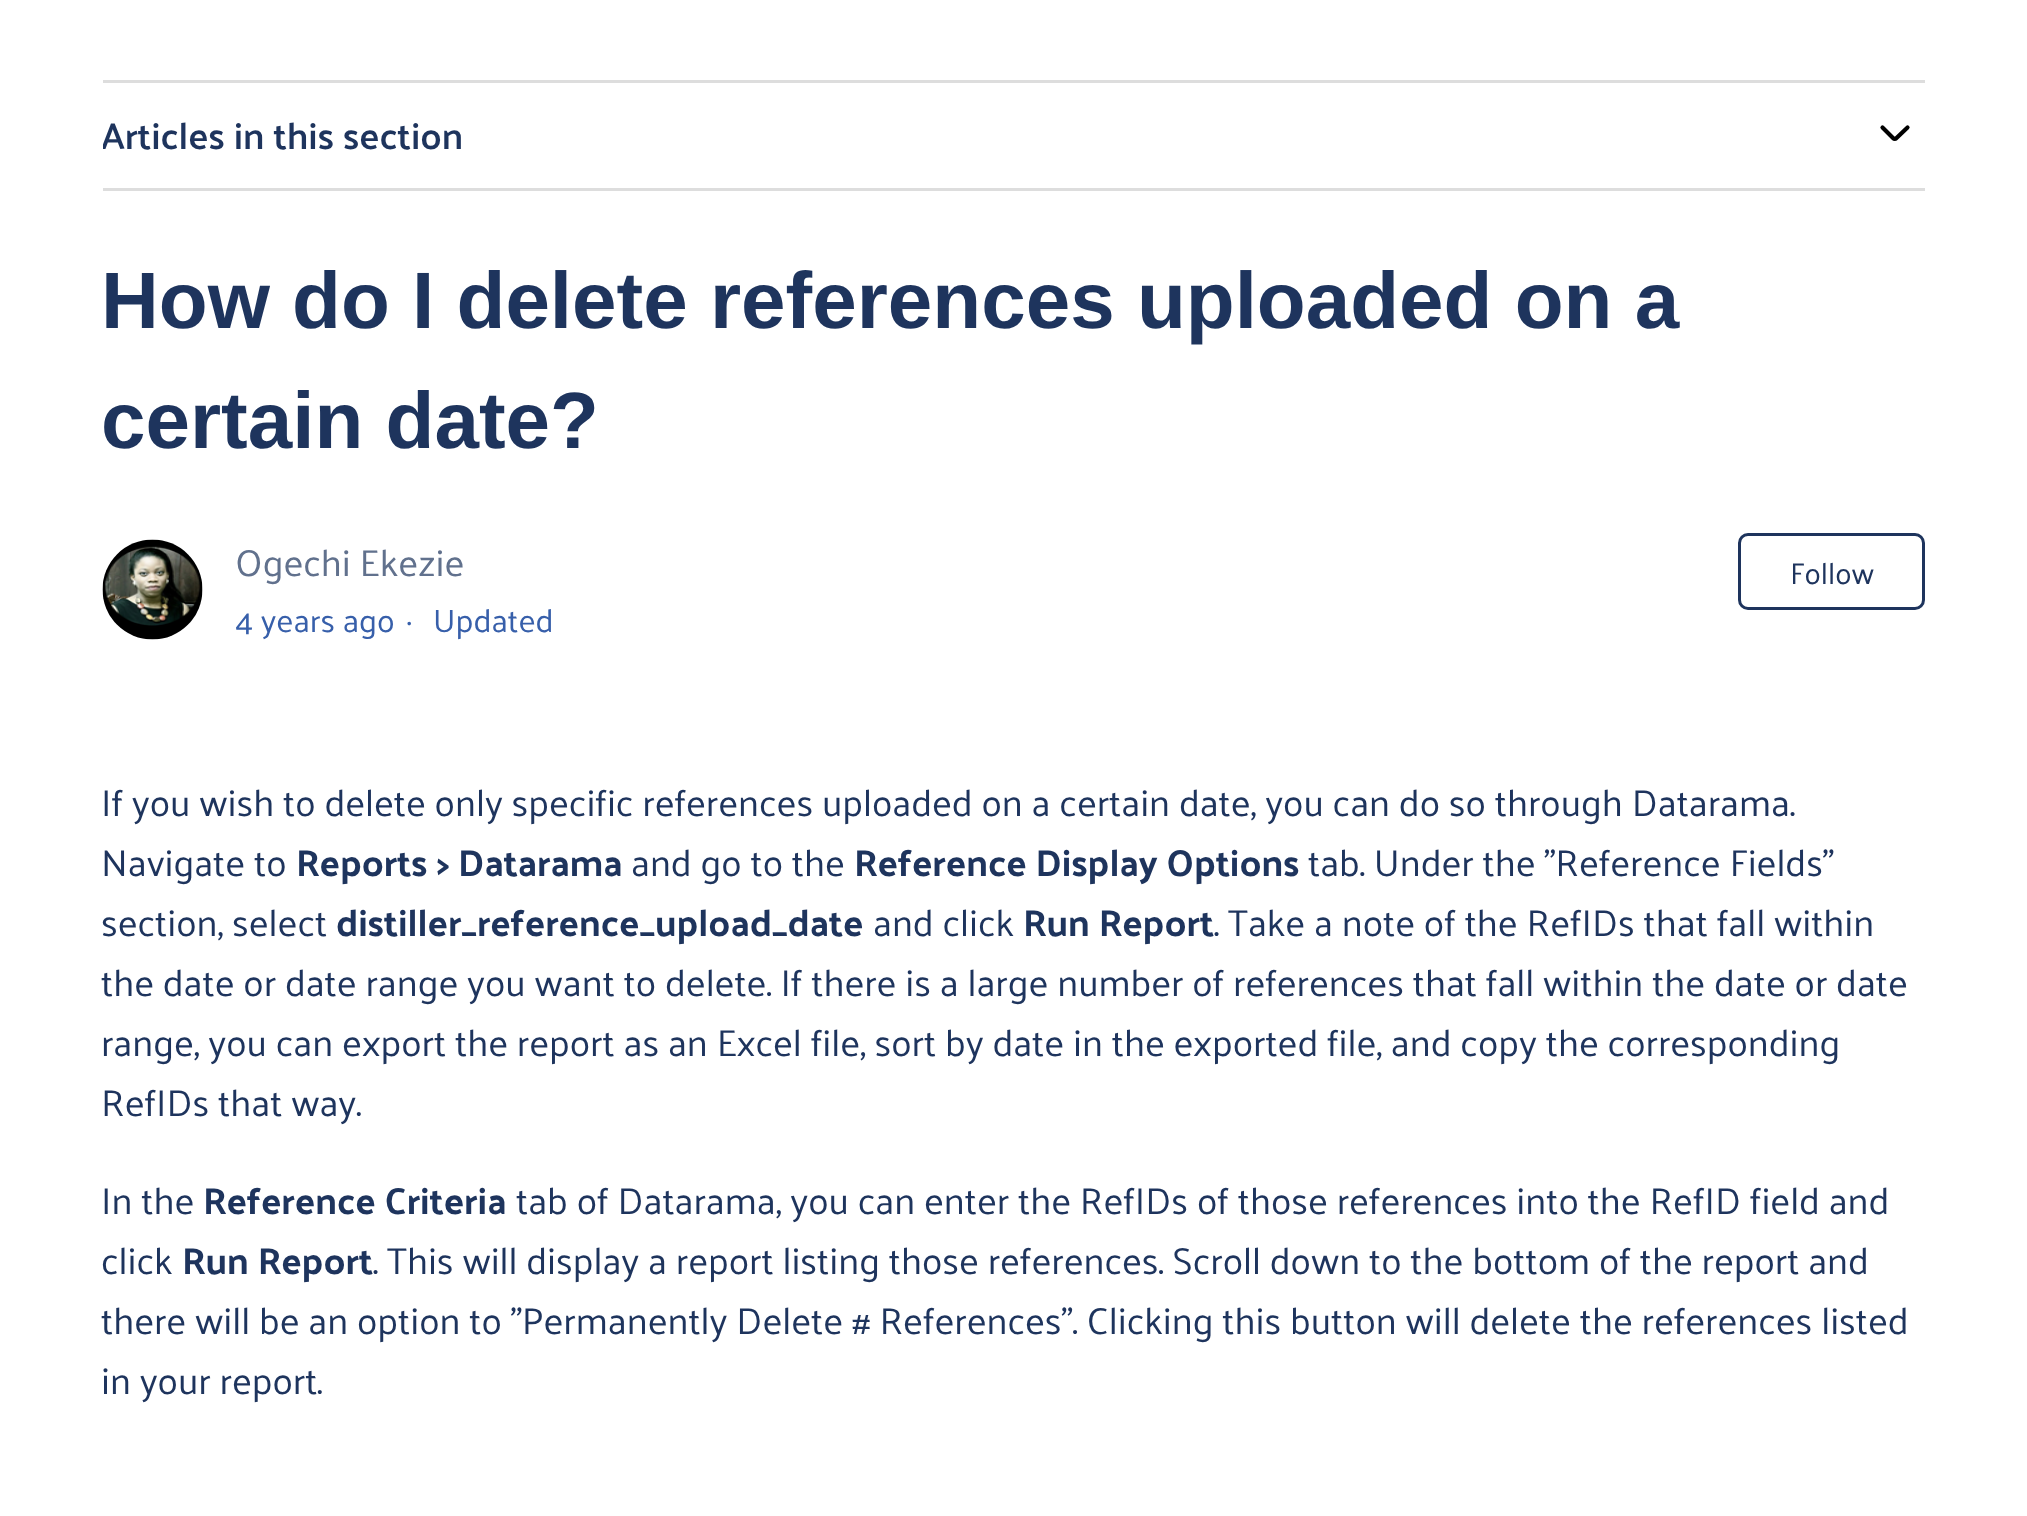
(async () => {
  const canvas = document.querySelector("canvas");
  canvas.width = 2027;
  canvas.height = 1516;
  const ctx = canvas.getContext("2d");
  ctx.miterLimit = 4;
  ctx.fontKerning = "normal";
  async function loadImage(src) {
    const img = new Image();
    img.src = src;
    await img.decode();
    return img;
  }
  let path;

  ctx.fillStyle = "#ffffff";
  ctx.fillRect(0, 0, 2027, 1516);
  ctx.fillStyle = "#dddddd";
  ctx.fillRect(103, 80, 1822, 3);
  ctx.fillRect(103, 188, 1822, 3);
  path = new Path2D("M1882.5 127.5L1893.5 138.5C1894 139 1895.5 139 1896 138.5L1907.5 127.5");
  ctx.strokeStyle = "#000000";
  ctx.lineWidth = 4.2;
  ctx.lineCap = "round";
  ctx.stroke(path);
  ctx.drawImage(await loadImage("img/1.png"), 102, 539, 101, 101);
  ctx.beginPath();
  ctx.roundRect(1739.5, 534.5, 184, 74, 8.5);
  ctx.strokeStyle = "#1e345d";
  ctx.lineWidth = 3;
  ctx.stroke();
  ctx.save();
  ctx.beginPath();
  ctx.rect(103, 83, 1822, 105);
  ctx.clip();
  ctx.font = "600 37.5px Palanquin";
  ctx.fillStyle = "#1e345d";
  ctx.fillText("Articles in this section", 101, 149);
  ctx.restore();
  ctx.font = "bold 80px Liberation Sans";
  ctx.fillStyle = "#1e345d";
  ctx.fillText("How do I delete references uploaded on a", 101, 328);
  ctx.fillText("certain date?", 101, 448);
  ctx.font = "37.5px Palanquin";
  ctx.fillStyle = "#61718d";
  ctx.fillText("Ogechi Ekezie", 235, 576);
  ctx.font = "32.5px Palanquin";
  ctx.fillStyle = "#375faa";
  for (const [text, x, y] of [
    ["4 years ago", 235, 632],
    ["·", 407, 632],
    ["Updated", 433, 632],
  ]) {
    ctx.fillText(text, x, y);
  }
  ctx.font = "30px Palanquin";
  ctx.fillStyle = "#1e345d";
  ctx.fillText("Follow", 1790, 584);
  ctx.font = "37.5px Palanquin";
  ctx.fillText("If you wish to delete only specific references uploaded on a certain date, you can do so through Datarama.", 101, 816);
  ctx.fillText("Navigate to", 101, 876);
  ctx.font = "bold 37.5px Palanquin";
  ctx.fillText("Reports > Datarama", 296, 876);
  ctx.font = "37.5px Palanquin";
  ctx.fillText("and go to the", 631, 876);
  ctx.font = "bold 37.5px Palanquin";
  ctx.fillText("Reference Display Options", 854, 876);
  ctx.font = "37.5px Palanquin";
  ctx.fillText("tab. Under the \"Reference Fields\"", 1308, 876);
  ctx.fillText("section, select", 101, 936);
  ctx.font = "bold 37.5px Palanquin";
  ctx.fillText("distiller_reference_upload_date", 336, 936);
  ctx.font = "37.5px Palanquin";
  ctx.fillText("and click", 873, 936);
  ctx.font = "bold 37.5px Palanquin";
  ctx.fillText("Run Report", 1023, 936);
  ctx.font = "37.5px Palanquin";
  for (const [text, x, y] of [
    [". Take a note of the RefIDs that fall within", 1214, 936],
    ["the date or date range you want to delete. If there is a large number of references that fall within the date or date", 101, 996],
    ["range, you can export the report as an Excel file, sort by date in the exported file, and copy the corresponding", 101, 1056],
    ["RefIDs that way.", 101, 1116],
    ["In the", 101, 1214],
  ]) {
    ctx.fillText(text, x, y);
  }
  ctx.font = "bold 37.5px Palanquin";
  ctx.fillText("Reference Criteria", 203, 1214);
  ctx.font = "37.5px Palanquin";
  ctx.fillText("tab of Datarama, you can enter the RefIDs of those references into the RefID field and", 516, 1214);
  ctx.fillText("click", 101, 1274);
  ctx.font = "bold 37.5px Palanquin";
  ctx.fillText("Run Report", 182, 1274);
  ctx.font = "37.5px Palanquin";
  for (const [text, x, y] of [
    [". This will display a report listing those references. Scroll down to the bottom of the report and", 373, 1274],
    ["there will be an option to \"Permanently Delete # References\". Clicking this button will delete the references listed", 101, 1334],
    ["in your report.", 101, 1394],
  ]) {
    ctx.fillText(text, x, y);
  }
})();
